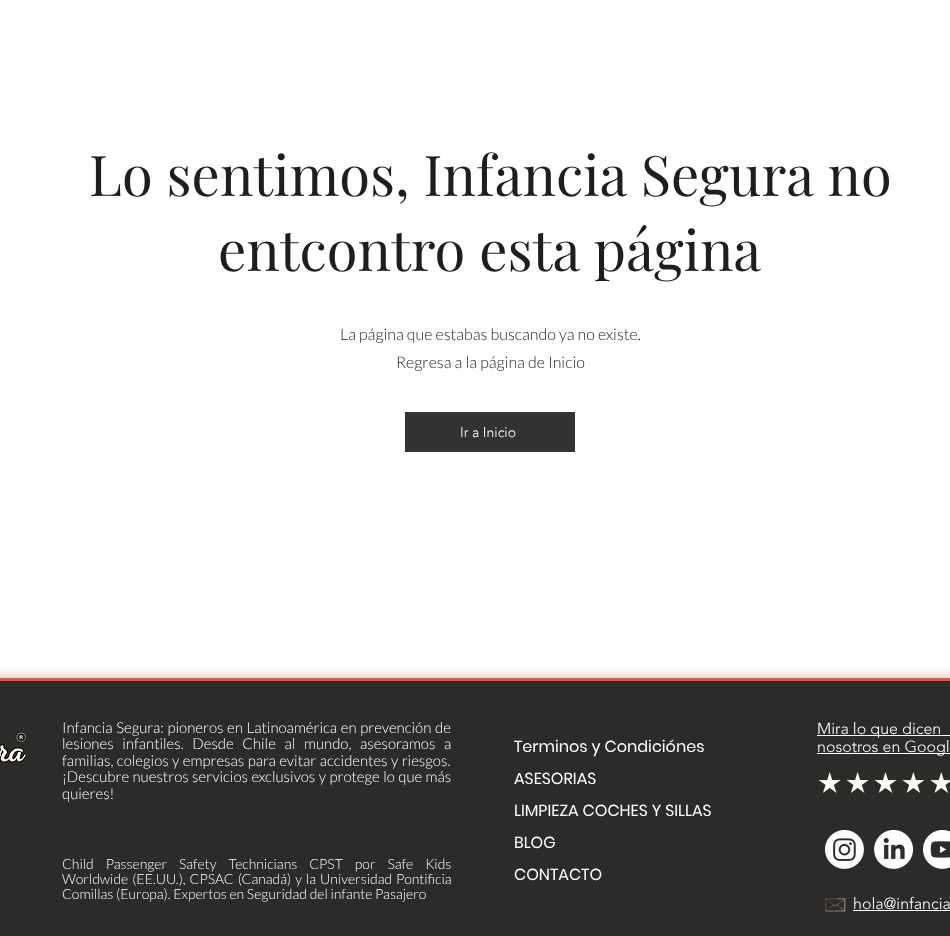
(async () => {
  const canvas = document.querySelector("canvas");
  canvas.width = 950;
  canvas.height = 936;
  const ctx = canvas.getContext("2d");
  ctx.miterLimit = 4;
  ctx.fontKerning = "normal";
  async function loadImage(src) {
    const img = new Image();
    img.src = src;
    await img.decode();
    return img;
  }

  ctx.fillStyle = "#ffffff";
  ctx.fillRect(0, 0, 950, 936);
  ctx.fillStyle = "#323232";
  ctx.fillRect(405, 412, 170, 40);
  ctx.fillStyle = "#f2836b";
  ctx.filter = "blur(7px)";
  ctx.beginPath();
  ctx.rect(-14, 680, 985, 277);
  ctx.fill();
  ctx.filter = "none";
  ctx.fillStyle = "#c66155";
  ctx.fillRect(0, 678, 950, 3);
  ctx.fillStyle = "#2d2b2a";
  ctx.fillRect(0, 681, 950, 255);
  ctx.drawImage(await loadImage("img/1.png"), 0, 731, 28, 33);
  ctx.fillStyle = "#ffffff";
  ctx.fillRect(817, 735, 133, 1);
  ctx.fillRect(817, 753, 133, 1);
  ctx.drawImage(await loadImage("img/2.png"), 818, 772, 132, 21);
  ctx.drawImage(await loadImage("img/3.png"), 825, 830, 39, 39);
  ctx.drawImage(await loadImage("img/4.png"), 874, 830, 39, 39);
  ctx.drawImage(await loadImage("img/5.png"), 923, 830, 27, 39);
  ctx.drawImage(await loadImage("img/6.png"), 825, 897, 22, 15);
  ctx.fillRect(853, 910, 97, 1);
  ctx.font = "56px Playfair Display";
  ctx.fillStyle = "#1d1e21";
  ctx.fillText("Lo sentimos, Infancia Segura no", 89, 196);
  ctx.fillText("entcontro esta página", 218, 271);
  ctx.font = "300 16px Lato";
  ctx.fillText("La página que estabas buscando ya no existe.", 340, 340);
  ctx.fillText("Regresa a la página de Inicio", 396, 368);
  ctx.font = "300 14px 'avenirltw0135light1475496'";
  ctx.fillStyle = "#ffffff";
  ctx.fillText("Ir a Inicio", 460, 437);
  ctx.wordSpacing = "0.75px";
  ctx.font = "300 15px Lato";
  ctx.fillText("Infancia Segura: pioneros en Latinoamérica en prevención de", 62, 733);
  ctx.wordSpacing = "5.75px";
  ctx.fillText("lesiones infantiles. Desde Chile al mundo, asesoramos a", 62, 749);
  ctx.wordSpacing = "0.5px";
  ctx.fillText("familias, colegios y empresas para evitar accidentes y riesgos.", 62, 766);
  ctx.fillText("¡Descubre nuestros servicios exclusivos y protege lo que más", 62, 782);
  ctx.wordSpacing = "0px";
  ctx.fillText("quieres!", 62, 799);
  ctx.font = "16px Poppins";
  for (const [text, x, y] of [
    ["Terminos y Condiciónes", 514, 752],
    ["ASESORIAS", 514, 784],
    ["LIMPIEZA COCHES Y SILLAS", 514, 816],
    ["BLOG", 514, 848],
    ["CONTACTO", 514, 880],
  ]) {
    ctx.fillText(text, x, y);
  }
  ctx.font = "300 16px 'avenirltw0135light1475496'";
  ctx.fillText("Mira lo que dicen", 817, 734);
  ctx.fillText("nosotros en Googl", 817, 752);
  ctx.wordSpacing = "9.25px";
  ctx.font = "300 14px Lato";
  ctx.fillText("Child Passenger Safety Technicians CPST por Safe Kids", 62, 869);
  ctx.wordSpacing = "1.25px";
  ctx.fillText("Worldwide (EE.UU.), CPSAC (Canadá) y la Universidad Pontificia", 62, 884);
  ctx.wordSpacing = "0px";
  ctx.fillText("Comillas (Europa). Expertos en Seguridad del infante Pasajero", 62, 899);
  ctx.font = "300 16px 'avenirltw0135light1475496'";
  ctx.fillText("hola@infancia", 853, 909);
})();
